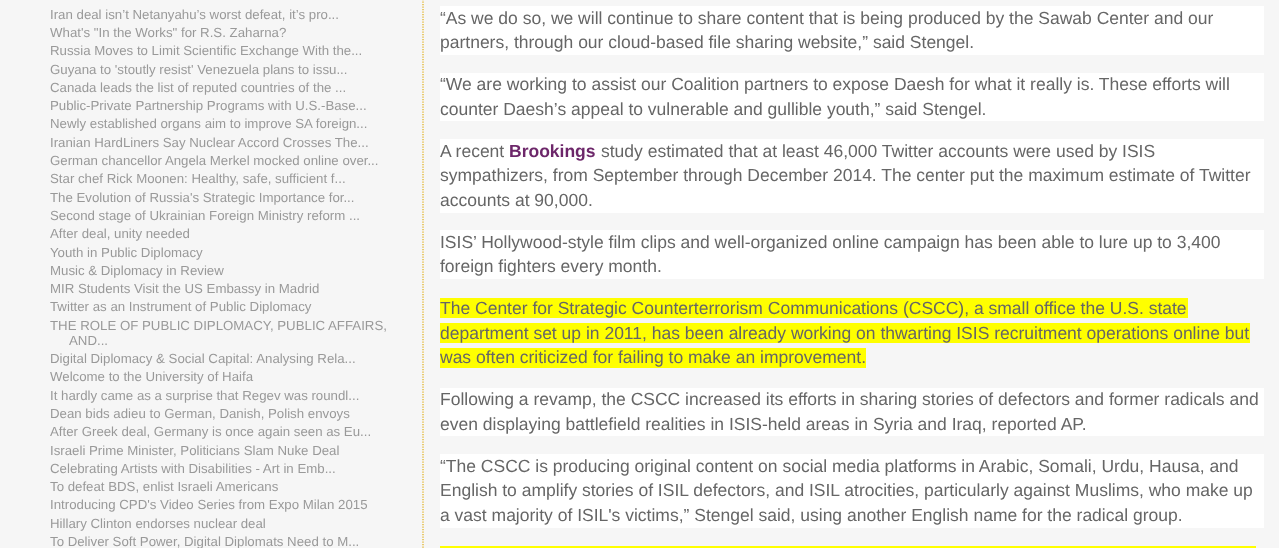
(async () => {
  const canvas = document.querySelector("canvas");
  canvas.width = 1279;
  canvas.height = 548;
  const ctx = canvas.getContext("2d");
  ctx.miterLimit = 4;
  ctx.fontKerning = "normal";
  let path;

  ctx.fillStyle = "#f6f6f6";
  ctx.fillRect(0, 0, 1279, 548);
  path = new Path2D("M423-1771V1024");
  ctx.strokeStyle = "#e0ad12";
  ctx.lineWidth = 1.2;
  ctx.setLineDash([1.25, 1.25]);
  ctx.stroke(path);
  for (const [x, y, w, h, color] of [
    [440, 6, 824, 49, "#ffffff"],
    [440, 73, 824, 48, "#ffffff"],
    [440, 139, 824, 74, "#ffffff"],
    [440, 230, 824, 49, "#ffffff"],
    [440, 298, 748, 20, "#ffff00"],
    [440, 323, 810, 20, "#ffff00"],
    [440, 348, 426, 20, "#ffff00"],
    [440, 388, 824, 48, "#ffffff"],
    [440, 454, 824, 74, "#ffffff"],
    [440, 546, 816, 2, "#ffff00"],
  ]) {
    ctx.fillStyle = color;
    ctx.fillRect(x, y, w, h);
  }
  ctx.font = "13.25px Liberation Sans";
  ctx.fillStyle = "#999999";
  for (const [text, x, y] of [
    ["Iran deal isn’t Netanyahu’s worst defeat, it’s pro...", 50, 19],
    ["What's \"In the Works\" for R.S. Zaharna?", 50, 37],
    ["Russia Moves to Limit Scientific Exchange With the...", 50, 55],
    ["Guyana to 'stoutly resist' Venezuela plans to issu...", 50, 74],
    ["Canada leads the list of reputed countries of the ...", 50, 92],
    ["Public-Private Partnership Programs with U.S.-Base...", 50, 110],
    ["Newly established organs aim to improve SA foreign...", 50, 128],
    ["Iranian HardLiners Say Nuclear Accord Crosses The...", 50, 147],
    ["German chancellor Angela Merkel mocked online over...", 50, 165],
    ["Star chef Rick Moonen: Healthy, safe, sufficient f...", 50, 183],
    ["The Evolution of Russia's Strategic Importance for...", 50, 202],
    ["Second stage of Ukrainian Foreign Ministry reform ...", 50, 220],
    ["After deal, unity needed", 50, 238],
    ["Youth in Public Diplomacy", 50, 257],
    ["Music & Diplomacy in Review", 50, 275],
    ["MIR Students Visit the US Embassy in Madrid", 50, 293],
    ["Twitter as an Instrument of Public Diplomacy", 50, 311],
    ["THE ROLE OF PUBLIC DIPLOMACY, PUBLIC", 50, 330],
    ["AFFAIRS,", 328, 330],
    ["AND...", 69, 345],
    ["Digital Diplomacy & Social Capital: Analysing Rela...", 50, 363],
    ["Welcome to the University of Haifa", 50, 381],
    ["It hardly came as a surprise that Regev was roundl...", 50, 400],
    ["Dean bids adieu to German, Danish, Polish envoys", 50, 418],
    ["After Greek deal, Germany is once again seen as Eu...", 50, 436],
    ["Israeli Prime Minister, Politicians Slam Nuke Deal", 50, 455],
    ["Celebrating Artists with Disabilities - Art in Emb...", 50, 473],
    ["To defeat BDS, enlist Israeli Americans", 50, 491],
    ["Introducing CPD's Video Series from Expo Milan 2015", 50, 509],
    ["Hillary Clinton endorses nuclear deal", 50, 528],
    ["To Deliver Soft Power, Digital Diplomats Need to M...", 50, 546],
  ]) {
    ctx.fillText(text, x, y);
  }
  ctx.font = "17.5px Liberation Sans";
  ctx.fillStyle = "#666666";
  for (const [text, x, y] of [
    ["“As we do so, we will continue to share content that is being produced by the Sawab Center and our", 440, 24],
    ["partners, through our cloud-based file sharing website,” said Stengel.", 440, 48],
    ["“We are working to assist our Coalition partners to expose Daesh for what it really is. These efforts will", 440, 90],
    ["counter Daesh’s appeal to vulnerable and gullible youth,” said Stengel.", 440, 115],
    ["A recent", 440, 157],
  ]) {
    ctx.fillText(text, x, y);
  }
  ctx.font = "bold 17.5px Liberation Sans";
  ctx.fillStyle = "#6d276a";
  ctx.fillText("Brookings", 509, 157);
  ctx.font = "17.5px Liberation Sans";
  ctx.fillStyle = "#666666";
  for (const [text, x, y] of [
    ["study estimated that at least 46,000 Twitter accounts were used by ISIS", 601, 157],
    ["sympathizers, from September through December 2014. The center put the maximum estimate of Twitter", 440, 181],
    ["accounts at 90,000.", 440, 206],
    ["ISIS’ Hollywood-style film clips and well-organized online campaign has been able to lure up to 3,400", 440, 248],
    ["foreign fighters every month.", 440, 272],
    ["The Center for Strategic Counterterrorism Communications (CSCC), a small office the U.S. state", 440, 314],
    ["department set up in 2011, has been already working on thwarting ISIS recruitment operations online but", 440, 339],
    ["was often criticized for failing to make an improvement.", 440, 363],
    ["Following a revamp, the CSCC increased its efforts in sharing stories of defectors and former radicals and", 440, 405],
    ["even displaying battlefield realities in ISIS-held areas in Syria and Iraq, reported AP.", 440, 430],
    ["“The CSCC is producing original content on social media platforms in Arabic, Somali, Urdu, Hausa, and", 440, 472],
    ["English to amplify stories of ISIL defectors, and ISIL atrocities, particularly against Muslims, who make up", 440, 496],
    ["a vast majority of ISIL's victims,” Stengel said, using another English name for the radical group.", 440, 521],
  ]) {
    ctx.fillText(text, x, y);
  }
})();
